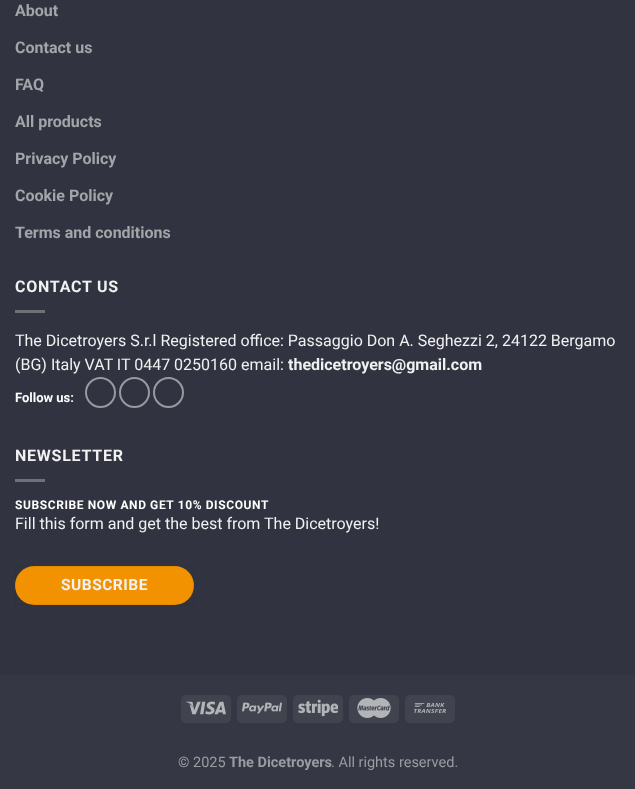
(async () => {
  const canvas = document.querySelector("canvas");
  canvas.width = 635;
  canvas.height = 789;
  const ctx = canvas.getContext("2d");
  ctx.miterLimit = 4;
  ctx.fontKerning = "normal";
  async function loadImage(src) {
    const img = new Image();
    img.src = src;
    await img.decode();
    return img;
  }

  ctx.fillStyle = "#313440";
  ctx.fillRect(0, 0, 635, 789);
  ctx.fillStyle = "#6f7179";
  ctx.fillRect(15, 310, 30, 3);
  ctx.beginPath();
  ctx.arc(100.5, 392.5, 14.5, 0, Math.PI * 2);
  ctx.strokeStyle = "#989aa0";
  ctx.lineWidth = 2;
  ctx.stroke();
  ctx.beginPath();
  ctx.arc(134.5, 392.5, 14.5, 0, Math.PI * 2);
  ctx.stroke();
  ctx.beginPath();
  ctx.arc(168.5, 392.5, 14.5, 0, Math.PI * 2);
  ctx.stroke();
  ctx.fillRect(15, 479, 30, 3);
  ctx.fillStyle = "#f39200";
  ctx.beginPath();
  ctx.roundRect(15, 566, 179, 39, 19.5);
  ctx.fill();
  ctx.strokeStyle = "rgba(0, 0, 0, 0.05)";
  ctx.lineWidth = 1;
  ctx.strokeRect(15.5, 566.5, 178, 38);
  ctx.fillStyle = "#353844";
  ctx.fillRect(0, 675, 635, 114);
  ctx.fillStyle = "#41444f";
  ctx.beginPath();
  ctx.roundRect(181, 695, 50, 28, 5);
  ctx.fill();
  ctx.drawImage(await loadImage("img/1.png"), 186, 701, 40, 14);
  ctx.beginPath();
  ctx.roundRect(237, 695, 50, 28, 5);
  ctx.fill();
  ctx.drawImage(await loadImage("img/2.png"), 242, 702, 40, 12);
  ctx.beginPath();
  ctx.roundRect(293, 695, 50, 28, 5);
  ctx.fill();
  ctx.drawImage(await loadImage("img/3.png"), 298, 699, 40, 18);
  ctx.beginPath();
  ctx.roundRect(349, 695, 50, 28, 5);
  ctx.fill();
  ctx.drawImage(await loadImage("img/4.png"), 357, 698, 34, 20);
  ctx.beginPath();
  ctx.roundRect(405, 695, 50, 28, 5);
  ctx.fill();
  ctx.drawImage(await loadImage("img/5.png"), 414, 703, 32, 10);
  ctx.font = "bold 16px Roboto";
  ctx.fillStyle = "#a4a5a9";
  for (const [text, x, y] of [
    ["About", 15, 16],
    ["Contact us", 15, 53],
    ["FAQ", 15, 90],
    ["All products", 15, 127],
    ["Privacy Policy", 15, 164],
    ["Cookie Policy", 15, 201],
    ["Terms and conditions", 15, 238],
  ]) {
    ctx.fillText(text, x, y);
  }
  ctx.letterSpacing = "0.75px";
  ctx.fillStyle = "#f1f1f1";
  ctx.fillText("CONTACT US", 15, 292);
  ctx.letterSpacing = "0px";
  ctx.font = "16px Roboto";
  ctx.fillText("The Dicetroyers S.r.l Registered office: Passaggio Don A. Seghezzi 2, 24122 Bergamo", 15, 346);
  ctx.fillText("(BG) Italy VAT IT 0447 0250160 email:", 15, 370);
  ctx.font = "bold 16px Roboto";
  ctx.fillText("thedicetroyers@gmail.com", 288, 370);
  ctx.font = "bold 13px Roboto";
  ctx.fillStyle = "#ffffff";
  ctx.fillText("Follow us:", 15, 402);
  ctx.letterSpacing = "0.75px";
  ctx.font = "bold 16px Roboto";
  ctx.fillStyle = "#f1f1f1";
  ctx.fillText("NEWSLETTER", 15, 461);
  ctx.letterSpacing = "0.6px";
  ctx.font = "bold 12px Roboto";
  ctx.fillStyle = "#ffffff";
  ctx.fillText("SUBSCRIBE NOW AND GET 10% DISCOUNT", 15, 509);
  ctx.letterSpacing = "0px";
  ctx.font = "16px Roboto";
  ctx.fillStyle = "#f1f1f1";
  ctx.fillText("Fill this form and get the best from The Dicetroyers!", 15, 529);
  ctx.letterSpacing = "0.5px";
  ctx.font = "bold 15.5px Roboto";
  ctx.fillText("SUBSCRIBE", 61, 590);
  ctx.letterSpacing = "0px";
  ctx.font = "14.5px Roboto";
  ctx.fillStyle = "#9a9ca2";
  ctx.fillText("© 2025", 178, 767);
  ctx.font = "bold 14.5px Roboto";
  ctx.fillText("The Dicetroyers", 229, 767);
  ctx.font = "14.5px Roboto";
  ctx.fillText(". All rights reserved.", 331, 767);
})();
